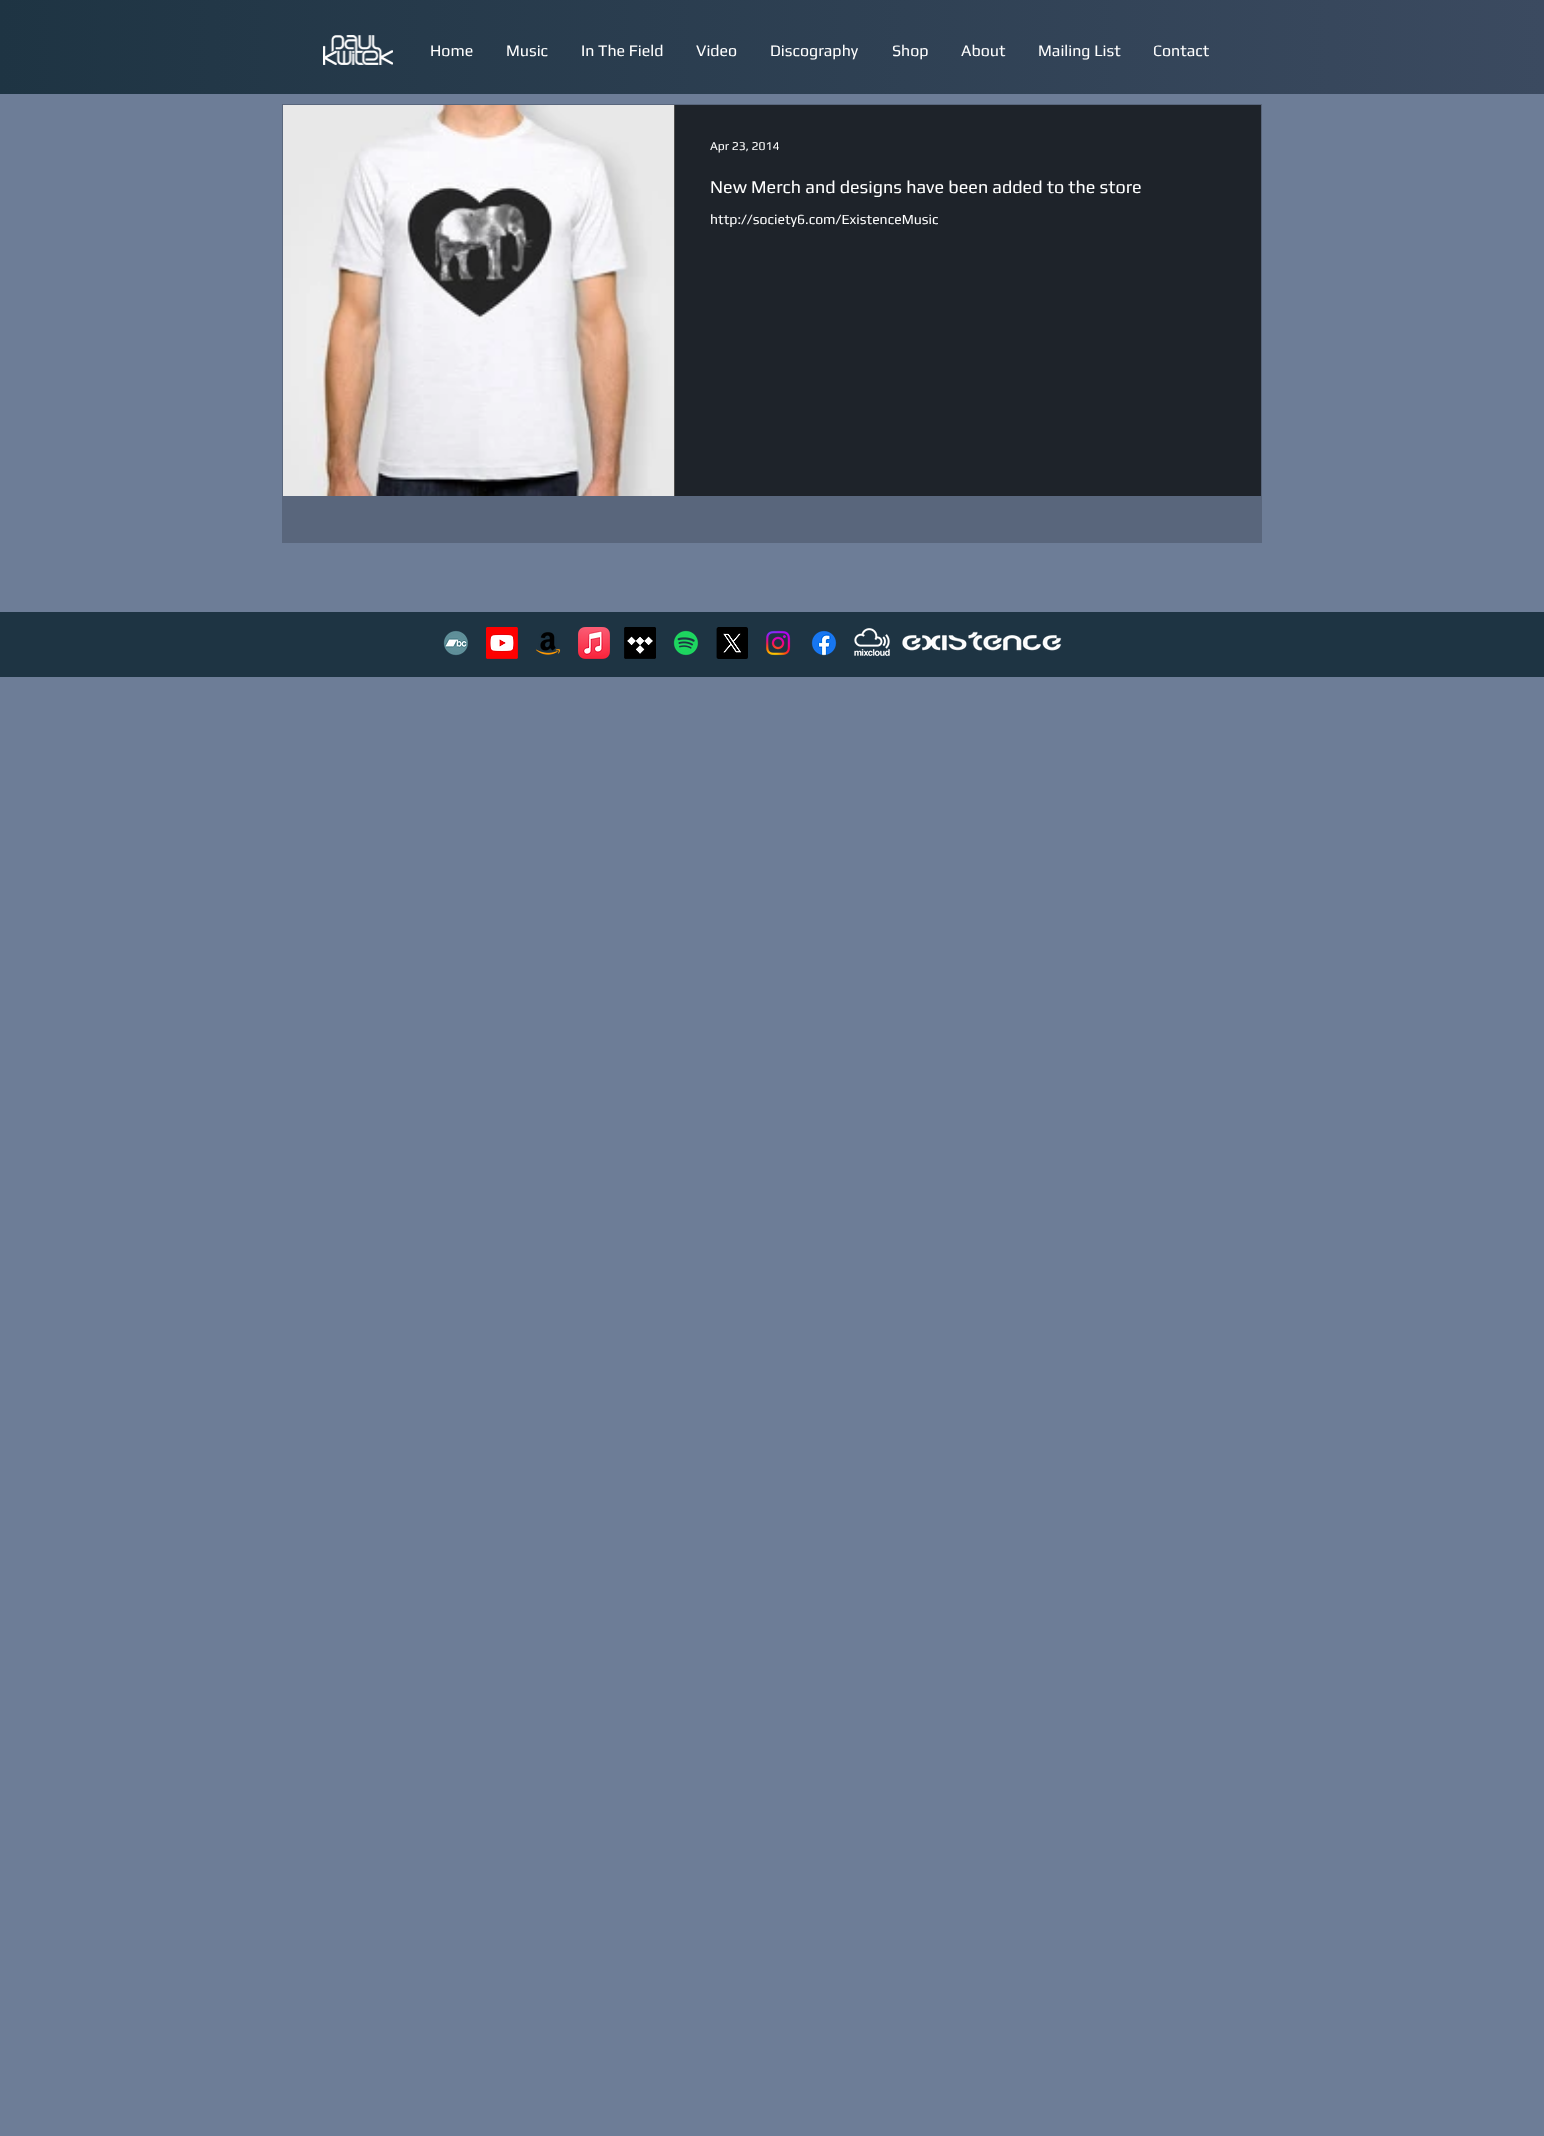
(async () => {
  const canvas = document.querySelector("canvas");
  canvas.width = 1544;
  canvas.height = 2136;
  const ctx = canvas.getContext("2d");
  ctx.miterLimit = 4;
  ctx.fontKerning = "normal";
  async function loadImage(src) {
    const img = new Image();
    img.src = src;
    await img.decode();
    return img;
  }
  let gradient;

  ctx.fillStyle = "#6d7d97";
  ctx.fillRect(0, 0, 1544, 2136);
  gradient = ctx.createLinearGradient(0, 47, 1544, 47);
  gradient.addColorStop(0, "#1e3443");
  gradient.addColorStop(1, "#3b4a60");
  ctx.fillStyle = gradient;
  ctx.fillRect(0, 0, 1544, 94);
  ctx.drawImage(await loadImage("img/1.png"), 323, 35, 70, 30);
  ctx.fillStyle = "#59667c";
  ctx.fillRect(282, 104, 980, 439);
  ctx.drawImage(await loadImage("img/2.png"), 283, 105, 392, 391);
  ctx.fillStyle = "rgba(0, 0, 0, 0.66)";
  ctx.fillRect(674, 105, 587, 391);
  ctx.fillStyle = "#1e3443";
  ctx.fillRect(0, 612, 1544, 65);
  ctx.drawImage(await loadImage("img/3.png"), 443, 630, 25, 26);
  ctx.drawImage(await loadImage("img/4.png"), 486, 627, 32, 32);
  ctx.drawImage(await loadImage("img/5.png"), 535, 632, 26, 23);
  ctx.drawImage(await loadImage("img/6.png"), 578, 627, 32, 32);
  ctx.drawImage(await loadImage("img/7.png"), 624, 627, 32, 32);
  ctx.drawImage(await loadImage("img/8.png"), 673, 630, 26, 26);
  ctx.drawImage(await loadImage("img/9.png"), 716, 627, 32, 32);
  ctx.drawImage(await loadImage("img/10.png"), 765, 630, 26, 26);
  ctx.drawImage(await loadImage("img/11.png"), 811, 630, 26, 26);
  ctx.drawImage(await loadImage("img/12.png"), 854, 628, 36, 28);
  ctx.drawImage(await loadImage("img/13.png"), 902, 631, 160, 20);
  ctx.font = "16px Play";
  ctx.fillStyle = "#ffffff";
  for (const [text, x, y] of [
    ["Home", 430, 56],
    ["Music", 506, 56],
    ["In The Field", 581, 56],
    ["Video", 696, 56],
    ["Discography", 770, 56],
    ["Shop", 892, 56],
    ["About", 961, 56],
    ["Mailing List", 1038, 56],
    ["Contact", 1153, 56],
  ]) {
    ctx.fillText(text, x, y);
  }
  ctx.font = "12px Play";
  ctx.fillText("Apr 23, 2014", 710, 150);
  ctx.font = "18px Play";
  ctx.fillText("New Merch and designs have been added to the store", 710, 193);
  ctx.font = "14px Play";
  ctx.fillText("http://society6.com/ExistenceMusic", 710, 224);
})();
